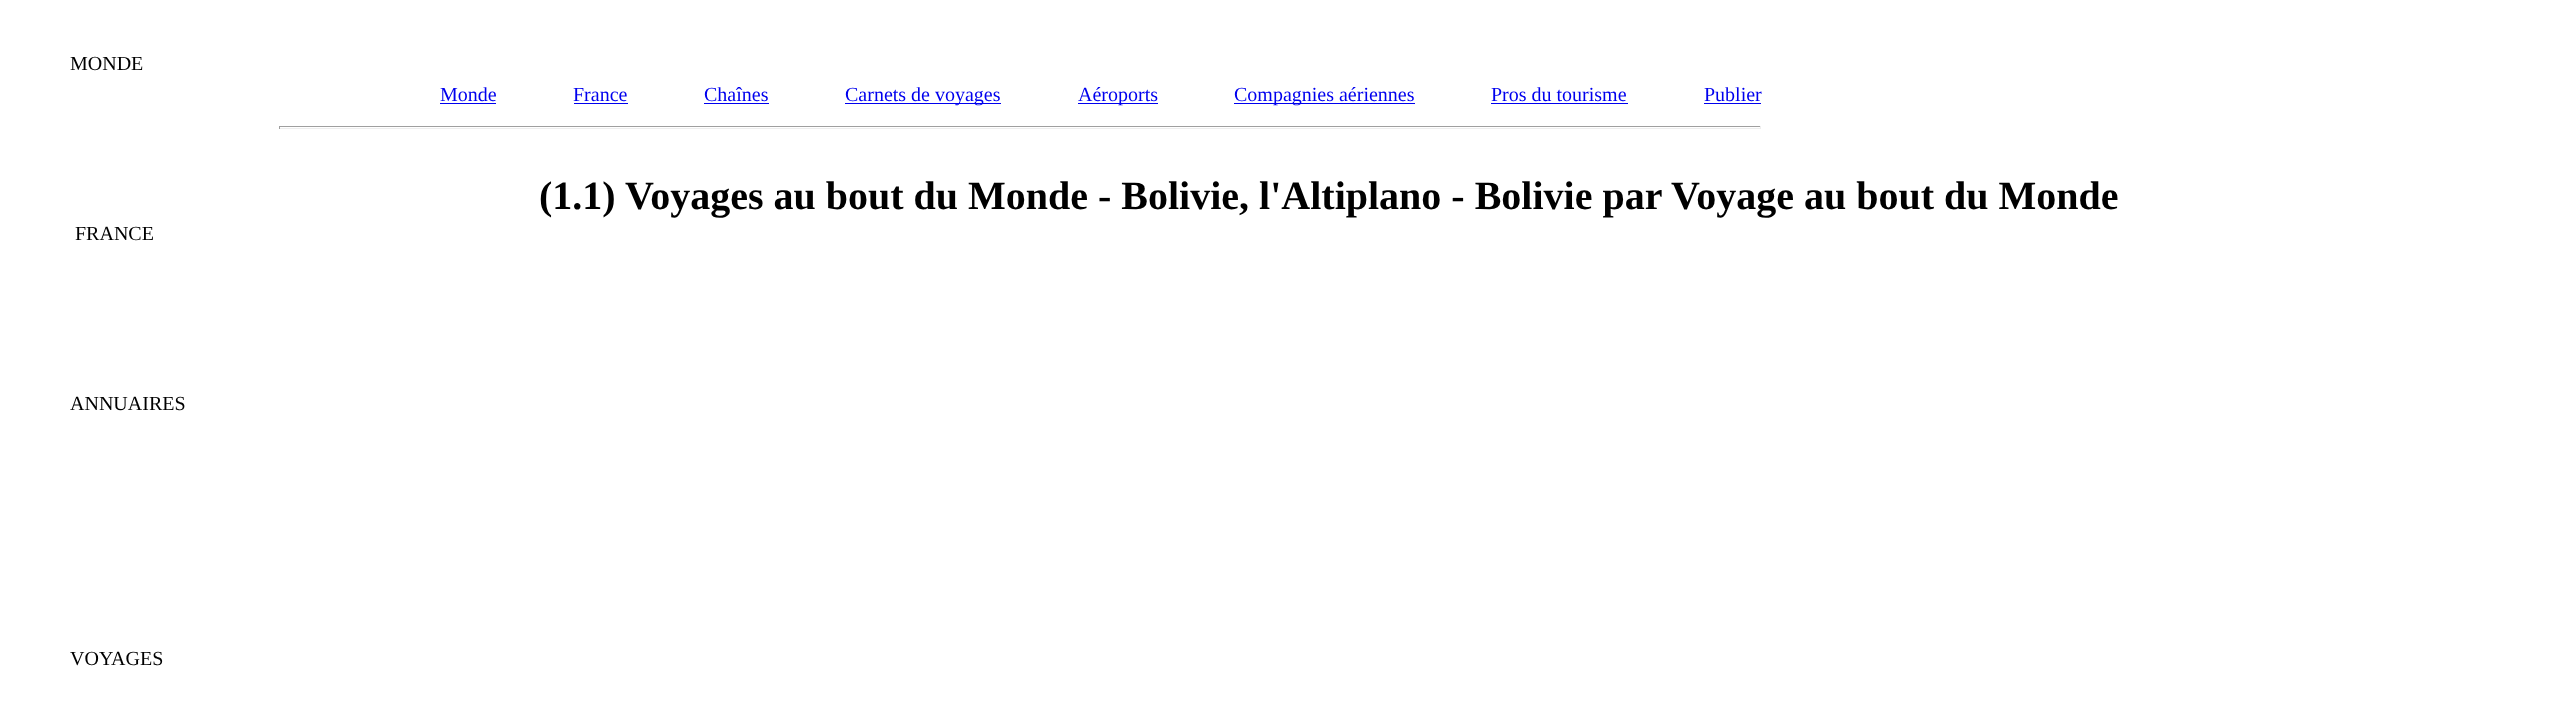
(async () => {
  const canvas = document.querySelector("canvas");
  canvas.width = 2575;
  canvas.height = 723;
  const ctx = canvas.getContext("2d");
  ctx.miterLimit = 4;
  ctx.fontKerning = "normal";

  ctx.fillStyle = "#ffffff";
  ctx.fillRect(0, 0, 2575, 723);
  for (const [x, y, w, h, color] of [
    [440, 103, 56, 1, "#0000ee"],
    [574, 103, 54, 1, "#0000ee"],
    [704, 103, 65, 1, "#0000ee"],
    [845, 103, 156, 1, "#0000ee"],
    [1078, 103, 80, 1, "#0000ee"],
    [1234, 103, 181, 1, "#0000ee"],
    [1491, 103, 137, 1, "#0000ee"],
    [1704, 103, 57, 1, "#0000ee"],
    [279, 126, 1482, 1, "#9f9f9f"],
    [1760, 126, 1, 3, "#eeeeee"],
    [279, 128, 1482, 1, "#eeeeee"],
    [279, 126, 1, 3, "#9f9f9f"],
  ]) {
    ctx.fillStyle = color;
    ctx.fillRect(x, y, w, h);
  }
  ctx.font = "20px Liberation Serif";
  ctx.fillStyle = "#000000";
  for (const [text, x, y] of [
    ["MONDE", 70, 70],
    ["FRANCE", 75, 240],
    ["ANNUAIRES", 70, 410],
    ["VOYAGES", 70, 665],
  ]) {
    ctx.fillText(text, x, y);
  }
  ctx.fillStyle = "#0000ee";
  for (const [text, x, y] of [
    ["Monde", 440, 101],
    ["France", 573, 101],
    ["Chaînes", 704, 101],
    ["Carnets de voyages", 845, 101],
    ["Aéroports", 1078, 101],
    ["Compagnies aériennes", 1234, 101],
    ["Pros du tourisme", 1491, 101],
    ["Publier", 1704, 101],
  ]) {
    ctx.fillText(text, x, y);
  }
  ctx.font = "bold 40px Liberation Serif";
  ctx.fillStyle = "#000000";
  ctx.fillText("(1.1) Voyages au bout du Monde - Bolivie, l'Altiplano - Bolivie par Voyage au bout du Monde", 539, 209);
})();
